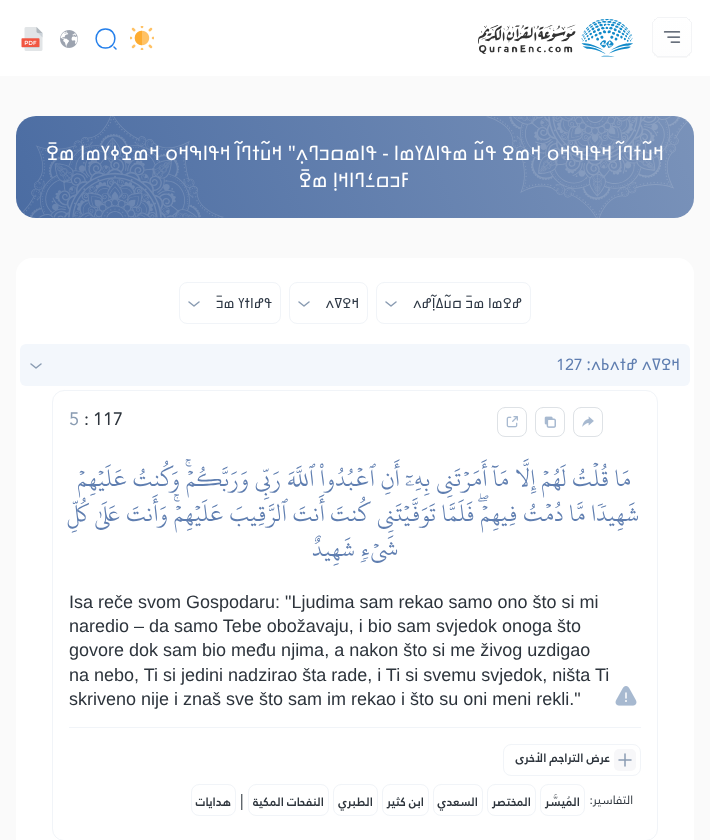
(async () => {
  const canvas = document.querySelector("canvas");
  canvas.width = 710;
  canvas.height = 840;
  const ctx = canvas.getContext("2d");
  ctx.miterLimit = 4;
  ctx.fontKerning = "normal";
  async function loadImage(src) {
    const img = new Image();
    img.src = src;
    await img.decode();
    return img;
  }
  let path;

  ctx.fillStyle = "#fafafa";
  ctx.fillRect(0, 0, 710, 840);
  ctx.fillStyle = "#ffffff";
  ctx.fillRect(0, 0, 710, 76);
  ctx.drawImage(await loadImage("img/1.png"), 652, 17, 40, 41);
  ctx.drawImage(await loadImage("img/2.png"), 478, 19, 155, 38);
  ctx.drawImage(await loadImage("img/3.png"), 130, 26, 24, 24);
  path = new Path2D("M105.5 48C118 48 118 29 105.5 29C93 29 93 48 105.5 48ZM116 49L114 47");
  ctx.strokeStyle = "#2680eb";
  ctx.lineWidth = 1.5;
  ctx.lineCap = "round";
  ctx.lineJoin = "round";
  ctx.stroke(path);
  ctx.drawImage(await loadImage("img/4.png"), 60, 30, 18, 18);
  ctx.drawImage(await loadImage("img/5.png"), 21, 27, 22, 24);
  ctx.drawImage(await loadImage("img/6.png"), 16, 116, 678, 102);
  ctx.beginPath();
  ctx.roundRect(16, 258, 678, 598, 16);
  ctx.fill();
  ctx.beginPath();
  ctx.roundRect(376.5, 282.5, 154, 41, 7.5);
  ctx.strokeStyle = "#f1f4f8";
  ctx.lineWidth = 1;
  ctx.lineJoin = "miter";
  ctx.stroke();
  path = new Path2D("M386 302L391 306L396 302");
  ctx.strokeStyle = "#8a9cb2";
  ctx.lineWidth = 1.5;
  ctx.lineJoin = "round";
  ctx.stroke(path);
  ctx.beginPath();
  ctx.roundRect(289.5, 282.5, 78, 41, 7.5);
  ctx.strokeStyle = "#f1f4f8";
  ctx.lineWidth = 1;
  ctx.lineJoin = "miter";
  ctx.stroke();
  path = new Path2D("M299 302L304 306L309 302");
  ctx.strokeStyle = "#8a9cb2";
  ctx.lineWidth = 1.5;
  ctx.lineJoin = "round";
  ctx.stroke(path);
  ctx.beginPath();
  ctx.roundRect(179.5, 282.5, 101, 41, 7.5);
  ctx.strokeStyle = "#f1f4f8";
  ctx.lineWidth = 1;
  ctx.lineJoin = "miter";
  ctx.stroke();
  path = new Path2D("M189 302L194 306L199 302");
  ctx.strokeStyle = "#8a9cb2";
  ctx.lineWidth = 1.5;
  ctx.lineJoin = "round";
  ctx.stroke(path);
  ctx.fillStyle = "#f3f7fc";
  ctx.beginPath();
  ctx.roundRect(20, 344, 670, 42, 6);
  ctx.fill();
  path = new Path2D("M31 364L36 368L41 364");
  ctx.stroke(path);
  ctx.beginPath();
  ctx.roundRect(52.5, 390.5, 605, 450, 11.5);
  ctx.strokeStyle = "#f1f4f8";
  ctx.lineWidth = 1;
  ctx.lineJoin = "miter";
  ctx.stroke();
  ctx.beginPath();
  ctx.roundRect(573.5, 407.5, 29, 29, 7.5);
  ctx.strokeStyle = "#dee2e6";
  ctx.stroke();
  ctx.drawImage(await loadImage("img/7.png"), 582, 416, 12, 11);
  ctx.beginPath();
  ctx.roundRect(535.5, 407.5, 29, 29, 7.5);
  ctx.stroke();
  ctx.drawImage(await loadImage("img/8.png"), 544, 416, 12, 12);
  ctx.beginPath();
  ctx.roundRect(497.5, 407.5, 29, 29, 7.5);
  ctx.stroke();
  ctx.drawImage(await loadImage("img/9.png"), 506, 416, 12, 12);
  ctx.fillStyle = "#f1f4f8";
  ctx.fillRect(69, 727, 572, 1);
  ctx.drawImage(await loadImage("img/10.png"), 615, 686, 22, 20);
  ctx.beginPath();
  ctx.roundRect(503.5, 744.5, 137, 31, 7.5);
  ctx.strokeStyle = "#f1f4f8";
  ctx.stroke();
  ctx.fillStyle = "#f7f7f9";
  ctx.beginPath();
  ctx.roundRect(614, 749, 22, 22, 5);
  ctx.fill();
  path = new Path2D("M625 754V766M631 760H619");
  ctx.strokeStyle = "#8a9cb2";
  ctx.lineWidth = 1.5;
  ctx.lineJoin = "round";
  ctx.stroke(path);
  ctx.beginPath();
  ctx.roundRect(540.5, 784.5, 44, 31, 7.5);
  ctx.strokeStyle = "#f1f4f8";
  ctx.lineWidth = 1;
  ctx.lineJoin = "miter";
  ctx.stroke();
  ctx.beginPath();
  ctx.roundRect(487.5, 784.5, 48, 31, 7.5);
  ctx.stroke();
  ctx.beginPath();
  ctx.roundRect(433.5, 784.5, 49, 31, 7.5);
  ctx.stroke();
  ctx.beginPath();
  ctx.roundRect(382.5, 784.5, 46, 31, 7.5);
  ctx.stroke();
  ctx.beginPath();
  ctx.roundRect(333.5, 784.5, 44, 31, 7.5);
  ctx.stroke();
  ctx.beginPath();
  ctx.roundRect(248.5, 784.5, 80, 31, 7.5);
  ctx.stroke();
  ctx.beginPath();
  ctx.roundRect(191.5, 784.5, 44, 31, 7.5);
  ctx.stroke();
  ctx.direction = "rtl";
  ctx.font = "20px Noto Sans NKo Unjoined";
  ctx.fillStyle = "#ffffff";
  ctx.fillText("ߞߎ߬ߙߣߊ߬ ߞߟߊߒߞߋ ߞߘߐ ߟߎ߬ ߘߟߊߡߌߘߊ - ߟߊߘߛߏߣߍ߲\" ߞߎ߬ߙߣߊ߬ ߞߟߊߒߞߋ ߞߘߐߦߌߘߊ ߘߐ߫", 664, 160);
  ctx.fillText("ߓߏߛߑߣߊߞߊ߲ ߘߐ߫", 411, 187);
  ctx.font = "14px Noto Sans NKo Unjoined";
  ctx.fillStyle = "#2e3845";
  for (const [text, x, y] of [
    ["ߝߐߘߊ ߘߏ߫ ߛߎ߬ߡߊ߲߬ߝߍ", 522, 308],
    ["ߞߐߜߍ", 359, 308],
    ["ߟߝߊߙߌ ߘߏ߫", 272, 308],
  ]) {
    ctx.fillText(text, x, y);
  }
  ctx.font = "16px Noto Sans NKo Unjoined";
  ctx.fillStyle = "#5f7eb0";
  ctx.fillText("ߞߐߜߍ ߝߙߍߕߍ:", 680, 370);
  ctx.direction = "ltr";
  ctx.font = "16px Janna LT";
  ctx.fillText("127", 556, 370);
  ctx.font = "18px Janna LT";
  ctx.fillStyle = "#2d343c";
  ctx.fillText("117", 93, 425);
  ctx.fillText(":", 84, 425);
  ctx.fillStyle = "#8a9cb2";
  ctx.fillText("5", 69, 425);
  ctx.direction = "rtl";
  ctx.font = "26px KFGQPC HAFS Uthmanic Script";
  ctx.fillStyle = "#5f7eb0";
  for (const [text, x, y] of [
    ["مَا قُلۡتُ لَهُمۡ إِلَّا مَآ أَمَرۡتَنِي بِهِۦٓ أَنِ ٱعۡبُدُواْ ٱللَّهَ رَبِّي وَرَبَّكُمۡۚ وَكُنتُ عَلَيۡهِمۡ", 631, 486],
    ["شَهِيدٗا مَّا دُمۡتُ فِيهِمۡۖ فَلَمَّا تَوَفَّيۡتَنِي كُنتَ أَنتَ ٱلرَّقِيبَ عَلَيۡهِمۡۚ وَأَنتَ عَلَىٰ كُلِّ", 639, 521],
    ["شَيۡءٖ شَهِيدٌ", 398, 556],
  ]) {
    ctx.fillText(text, x, y);
  }
  ctx.direction = "ltr";
  ctx.font = "18px Liberation Sans";
  ctx.fillStyle = "#2d343c";
  for (const [text, x, y] of [
    ["Isa reče svom Gospodaru: \"Ljudima sam rekao samo ono što si mi", 69, 608],
    ["naredio – da samo Tebe obožavaju, i bio sam svjedok onoga što", 69, 632],
    ["govore dok sam bio među njima, a nakon što si me živog uzdigao", 69, 656],
    ["na nebo, Ti si jedini nadzirao šta rade, i Ti si svemu svjedok, ništa Ti", 69, 681],
    ["skriveno nije i znaš sve što sam im rekao i što su oni meni rekli.\"", 69, 705],
  ]) {
    ctx.fillText(text, x, y);
  }
  ctx.direction = "rtl";
  ctx.font = "bold 12px Janna LT";
  ctx.fillText("عرض التراجم الأخرى", 610, 762);
  ctx.font = "12px Janna LT";
  ctx.fillText("التفاسير:", 633, 804);
  ctx.font = "bold 12px Janna LT";
  for (const [text, x, y] of [
    ["المُيسَّر", 580, 806],
    ["المختصر", 531, 806],
    ["السعدي", 478, 806],
    ["ابن كثير", 424, 806],
    ["الطبري", 373, 806],
    ["النفحات المكية", 324, 806],
  ]) {
    ctx.fillText(text, x, y);
  }
  ctx.direction = "ltr";
  ctx.font = "16px Janna LT";
  ctx.fillText("|", 240, 806);
  ctx.direction = "rtl";
  ctx.font = "bold 12px Janna LT";
  ctx.fillText("هدايات", 231, 806);
})();
